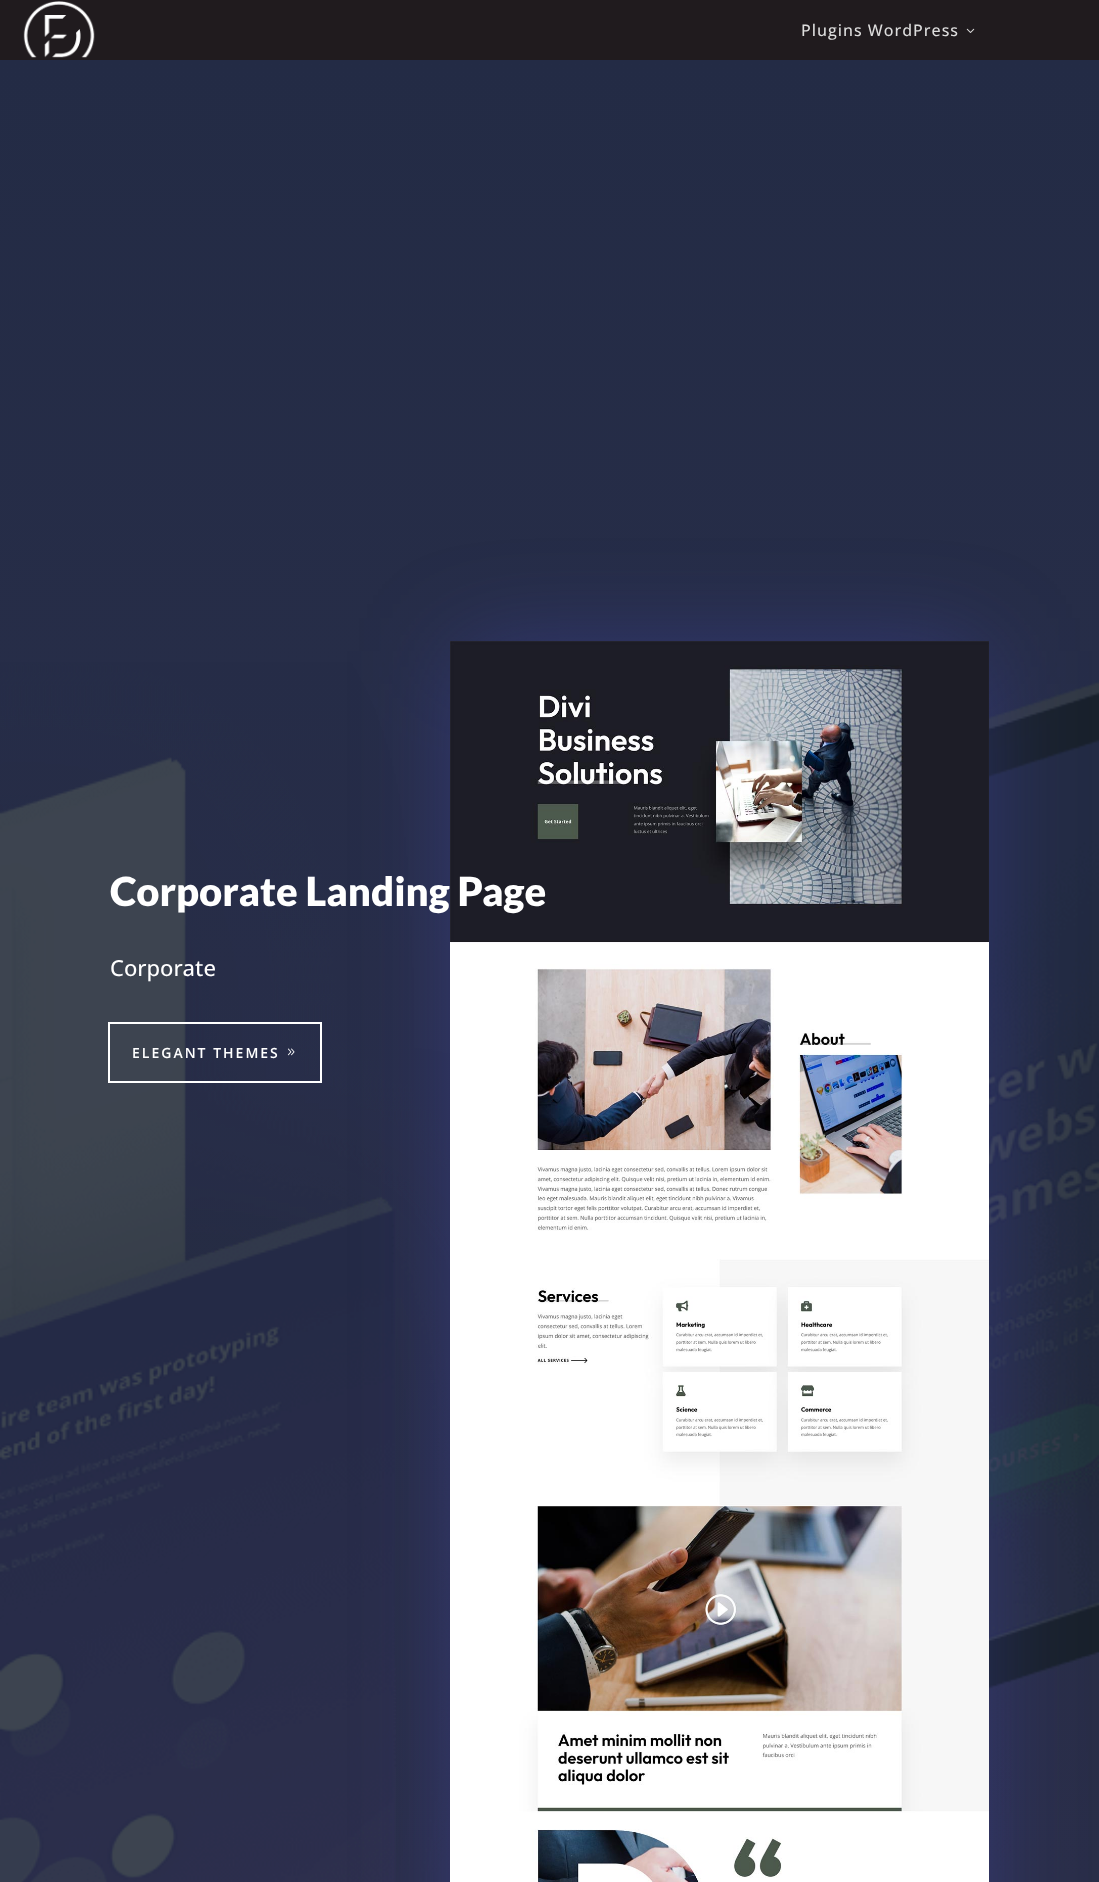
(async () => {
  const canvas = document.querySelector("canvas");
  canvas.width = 1099;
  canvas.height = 1882;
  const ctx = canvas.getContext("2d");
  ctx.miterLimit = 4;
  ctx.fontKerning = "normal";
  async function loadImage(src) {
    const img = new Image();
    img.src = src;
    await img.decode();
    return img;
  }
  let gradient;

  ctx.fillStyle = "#ffffff";
  ctx.fillRect(0, 0, 1099, 1882);
  ctx.fillStyle = "#201b1e";
  ctx.fillRect(0, 0, 1099, 60);
  ctx.drawImage(await loadImage("img/1.png"), 23, 1, 72, 57);
  ctx.drawImage(await loadImage("img/2.png"), 966, 28, 9, 5);
  gradient = ctx.createLinearGradient(549, 60, 550, 1882);
  gradient.addColorStop(0, "#232b45");
  gradient.addColorStop(1, "#2d314e");
  ctx.fillStyle = gradient;
  ctx.fillRect(0, 60, 1099, 1822);
  ctx.drawImage(await loadImage("img/4.png"), 0, 662, 1099, 1220);
  ctx.fillStyle = "rgba(71, 74, 182, 0.43)";
  ctx.filter = "blur(50px)";
  ctx.beginPath();
  ctx.rect(460, 651, 519, 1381);
  ctx.fill();
  ctx.filter = "none";
  ctx.drawImage(await loadImage("img/3.png"), 450, 641, 539, 1241);
  ctx.strokeStyle = "#ffffff";
  ctx.lineWidth = 2;
  ctx.strokeRect(109, 1023, 212, 59);
  ctx.drawImage(await loadImage("img/5.png"), 287, 1048, 8, 8);
  ctx.letterSpacing = "1px";
  ctx.font = "500 16px Open Sans";
  ctx.fillStyle = "#dddddd";
  ctx.fillText("Plugins WordPress", 801, 36);
  ctx.letterSpacing = "0px";
  ctx.font = "900 40px Lato";
  ctx.fillStyle = "#ffffff";
  ctx.fillText("Corporate Landing Page", 110, 906);
  ctx.font = "500 22px Open Sans";
  ctx.fillText("Corporate", 110, 976);
  ctx.letterSpacing = "2px";
  ctx.font = "600 14px Open Sans";
  ctx.fillText("ELEGANT THEMES", 132, 1058);
})();
